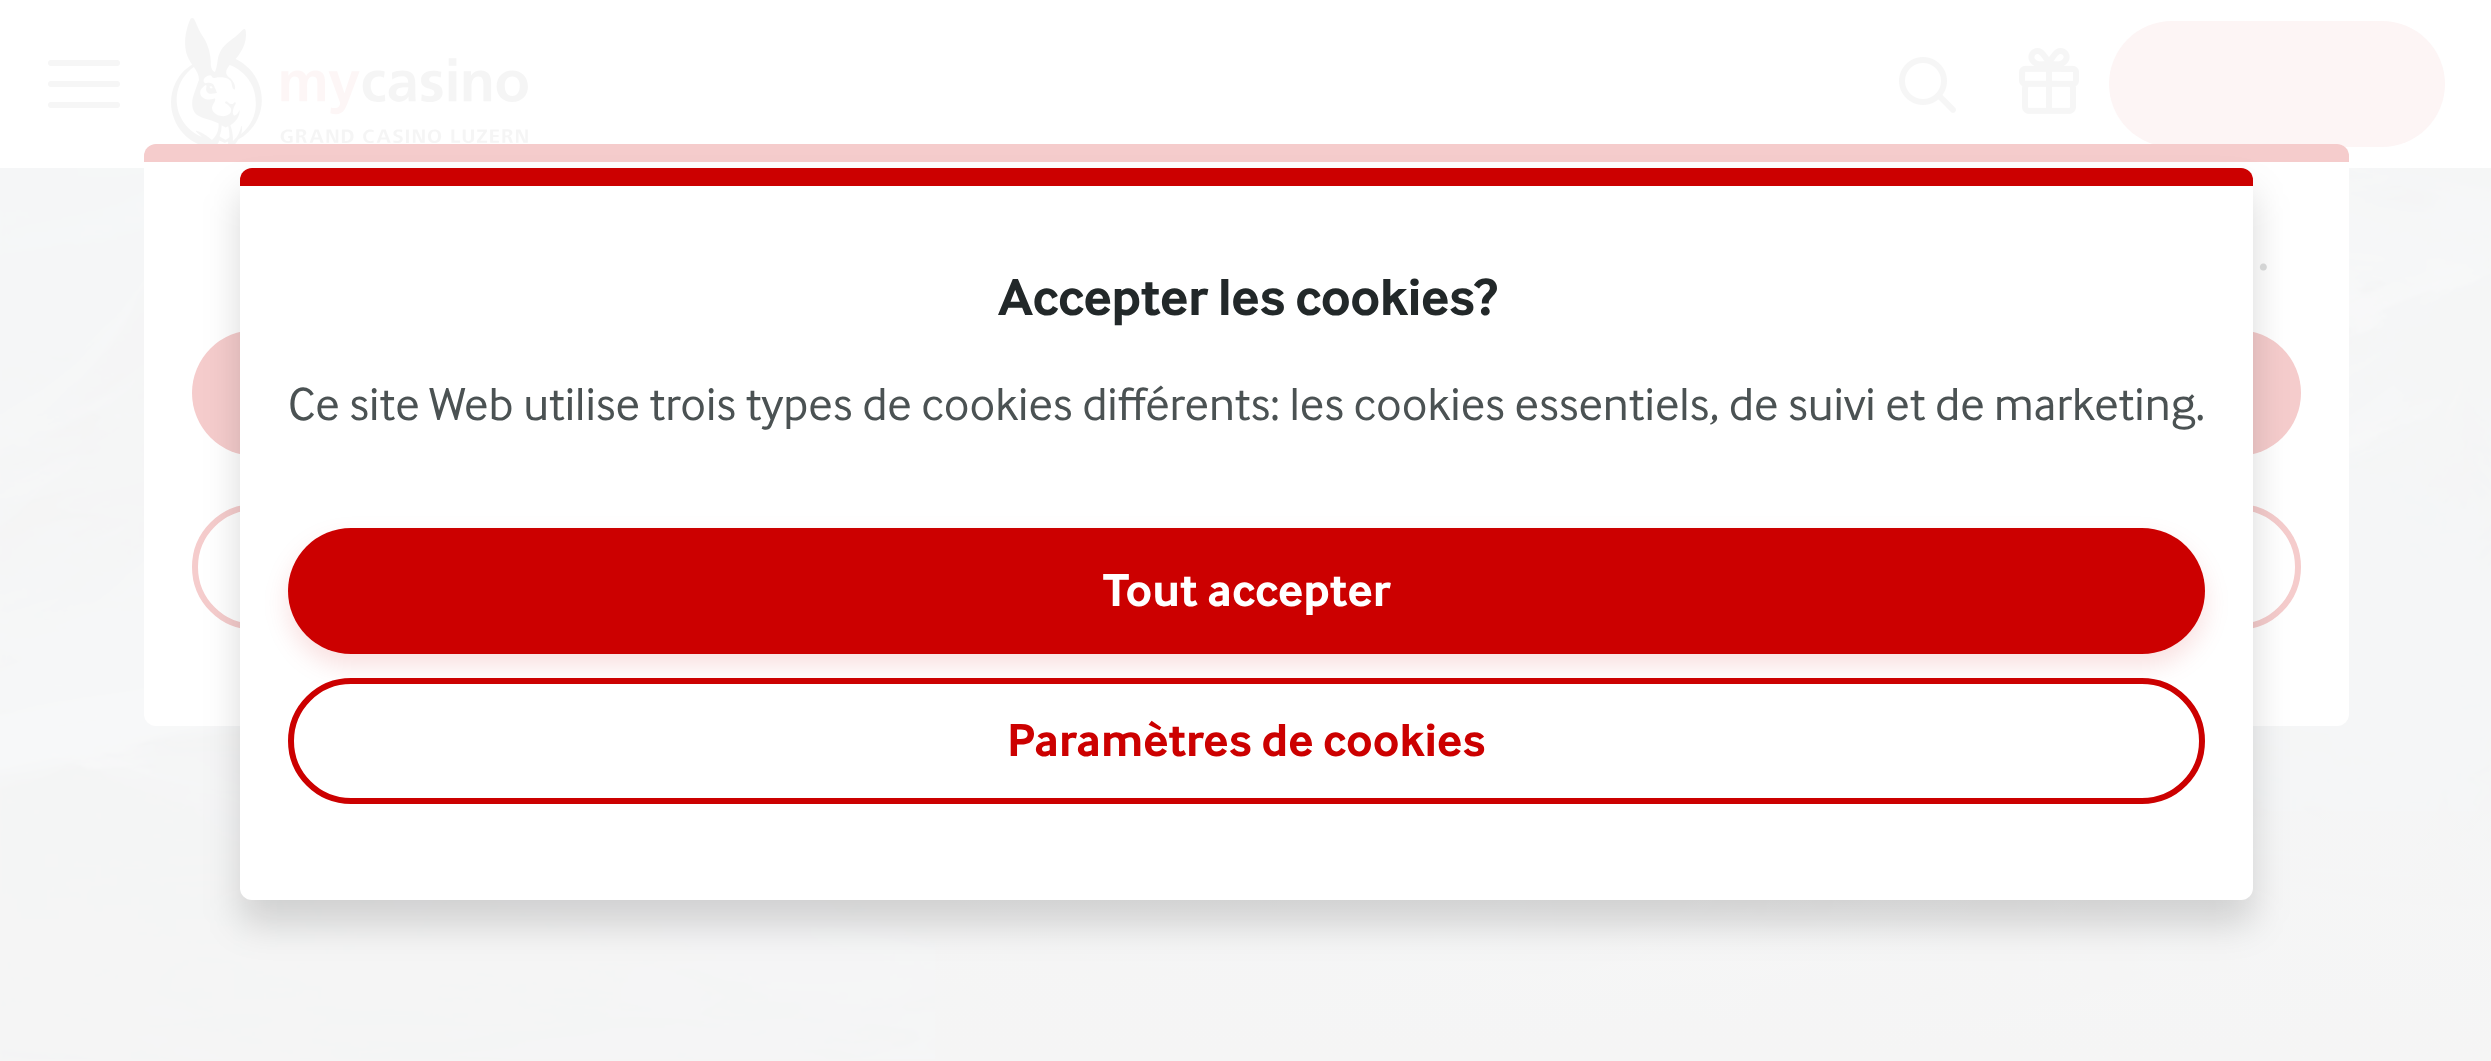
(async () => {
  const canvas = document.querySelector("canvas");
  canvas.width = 2491;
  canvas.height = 1061;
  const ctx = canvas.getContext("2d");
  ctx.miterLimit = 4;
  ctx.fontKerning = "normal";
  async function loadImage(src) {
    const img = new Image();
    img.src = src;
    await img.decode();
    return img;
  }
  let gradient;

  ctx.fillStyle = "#f5f5f5";
  ctx.fillRect(0, 0, 2491, 1061);
  ctx.fillStyle = "#ffffff";
  ctx.fillRect(0, 0, 2491, 168);
  ctx.fillStyle = "#f6f6f6";
  ctx.beginPath();
  ctx.roundRect(48, 60, 72, 6, 3);
  ctx.fill();
  ctx.beginPath();
  ctx.roundRect(48, 81, 72, 6, 3);
  ctx.fill();
  ctx.beginPath();
  ctx.roundRect(48, 102, 72, 6, 3);
  ctx.fill();
  ctx.drawImage(await loadImage("img/1.png"), 171, 18, 357, 126);
  ctx.drawImage(await loadImage("img/2.png"), 1899, 57, 57, 56);
  ctx.drawImage(await loadImage("img/3.png"), 2019, 48, 60, 66);
  ctx.fillStyle = "#fdf5f5";
  ctx.beginPath();
  ctx.roundRect(2109, 21, 336, 126, 63);
  ctx.fill();
  ctx.drawImage(await loadImage("img/4.png"), 0, 168, 2491, 891);
  gradient = ctx.createLinearGradient(1247, 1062, 1247, 531);
  gradient.addColorStop(0, "#f5f5f5");
  gradient.addColorStop(1, "rgba(245, 245, 245, 0)");
  ctx.fillStyle = gradient;
  ctx.fillRect(935, 811, 1556, 248);
  ctx.fillStyle = "#ffffff";
  ctx.beginPath();
  ctx.roundRect(144, 144, 2205, 582, 12);
  ctx.fill();
  ctx.fillStyle = "#f5cccc";
  ctx.beginPath();
  ctx.roundRect(144, 144, 2205, 18, [12, 12, 0, 0]);
  ctx.fill();
  ctx.beginPath();
  ctx.roundRect(192, 330, 2109, 126, 63);
  ctx.fill();
  ctx.beginPath();
  ctx.roundRect(195, 507, 2103, 120, 60);
  ctx.strokeStyle = "#f5cccc";
  ctx.lineWidth = 6;
  ctx.stroke();
  ctx.fillStyle = "rgba(0, 0, 0, 0.15)";
  ctx.filter = "blur(18px)";
  ctx.beginPath();
  ctx.roundRect(240, 192, 2013, 732, 12);
  ctx.fill();
  ctx.filter = "none";
  ctx.fillStyle = "#ffffff";
  ctx.beginPath();
  ctx.roundRect(240, 168, 2013, 732, 12);
  ctx.fill();
  ctx.fillStyle = "#cc0000";
  ctx.beginPath();
  ctx.roundRect(240, 168, 2013, 18, [12, 12, 0, 0]);
  ctx.fill();
  ctx.fillStyle = "rgba(204, 0, 0, 0.12)";
  ctx.filter = "blur(12px)";
  ctx.beginPath();
  ctx.roundRect(288, 540, 1917, 126, 63);
  ctx.fill();
  ctx.filter = "none";
  ctx.fillStyle = "#cc0000";
  ctx.beginPath();
  ctx.roundRect(288, 528, 1917, 126, 63);
  ctx.fill();
  ctx.beginPath();
  ctx.roundRect(291, 681, 1911, 120, 60);
  ctx.strokeStyle = "#cc0000";
  ctx.stroke();
  ctx.font = "bold 48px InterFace";
  ctx.fillStyle = "#d3d4d4";
  ctx.fillText(".", 2258, 270);
  ctx.letterSpacing = "-0.5px";
  ctx.font = "bold 54px InterFace";
  ctx.fillStyle = "#222829";
  ctx.fillText("Accepter les cookies?", 998, 315);
  ctx.letterSpacing = "0px";
  ctx.font = "48px InterFace";
  ctx.fillStyle = "#4b5253";
  ctx.fillText("Ce site Web utilise trois types de cookies différents: les cookies essentiels, de suivi et de marketing.", 288, 420);
  ctx.font = "bold 48px InterFace";
  ctx.fillStyle = "#ffffff";
  ctx.fillText("Tout accepter", 1103, 606);
  ctx.fillStyle = "#cc0000";
  ctx.fillText("Paramètres de cookies", 1007, 756);
})();
